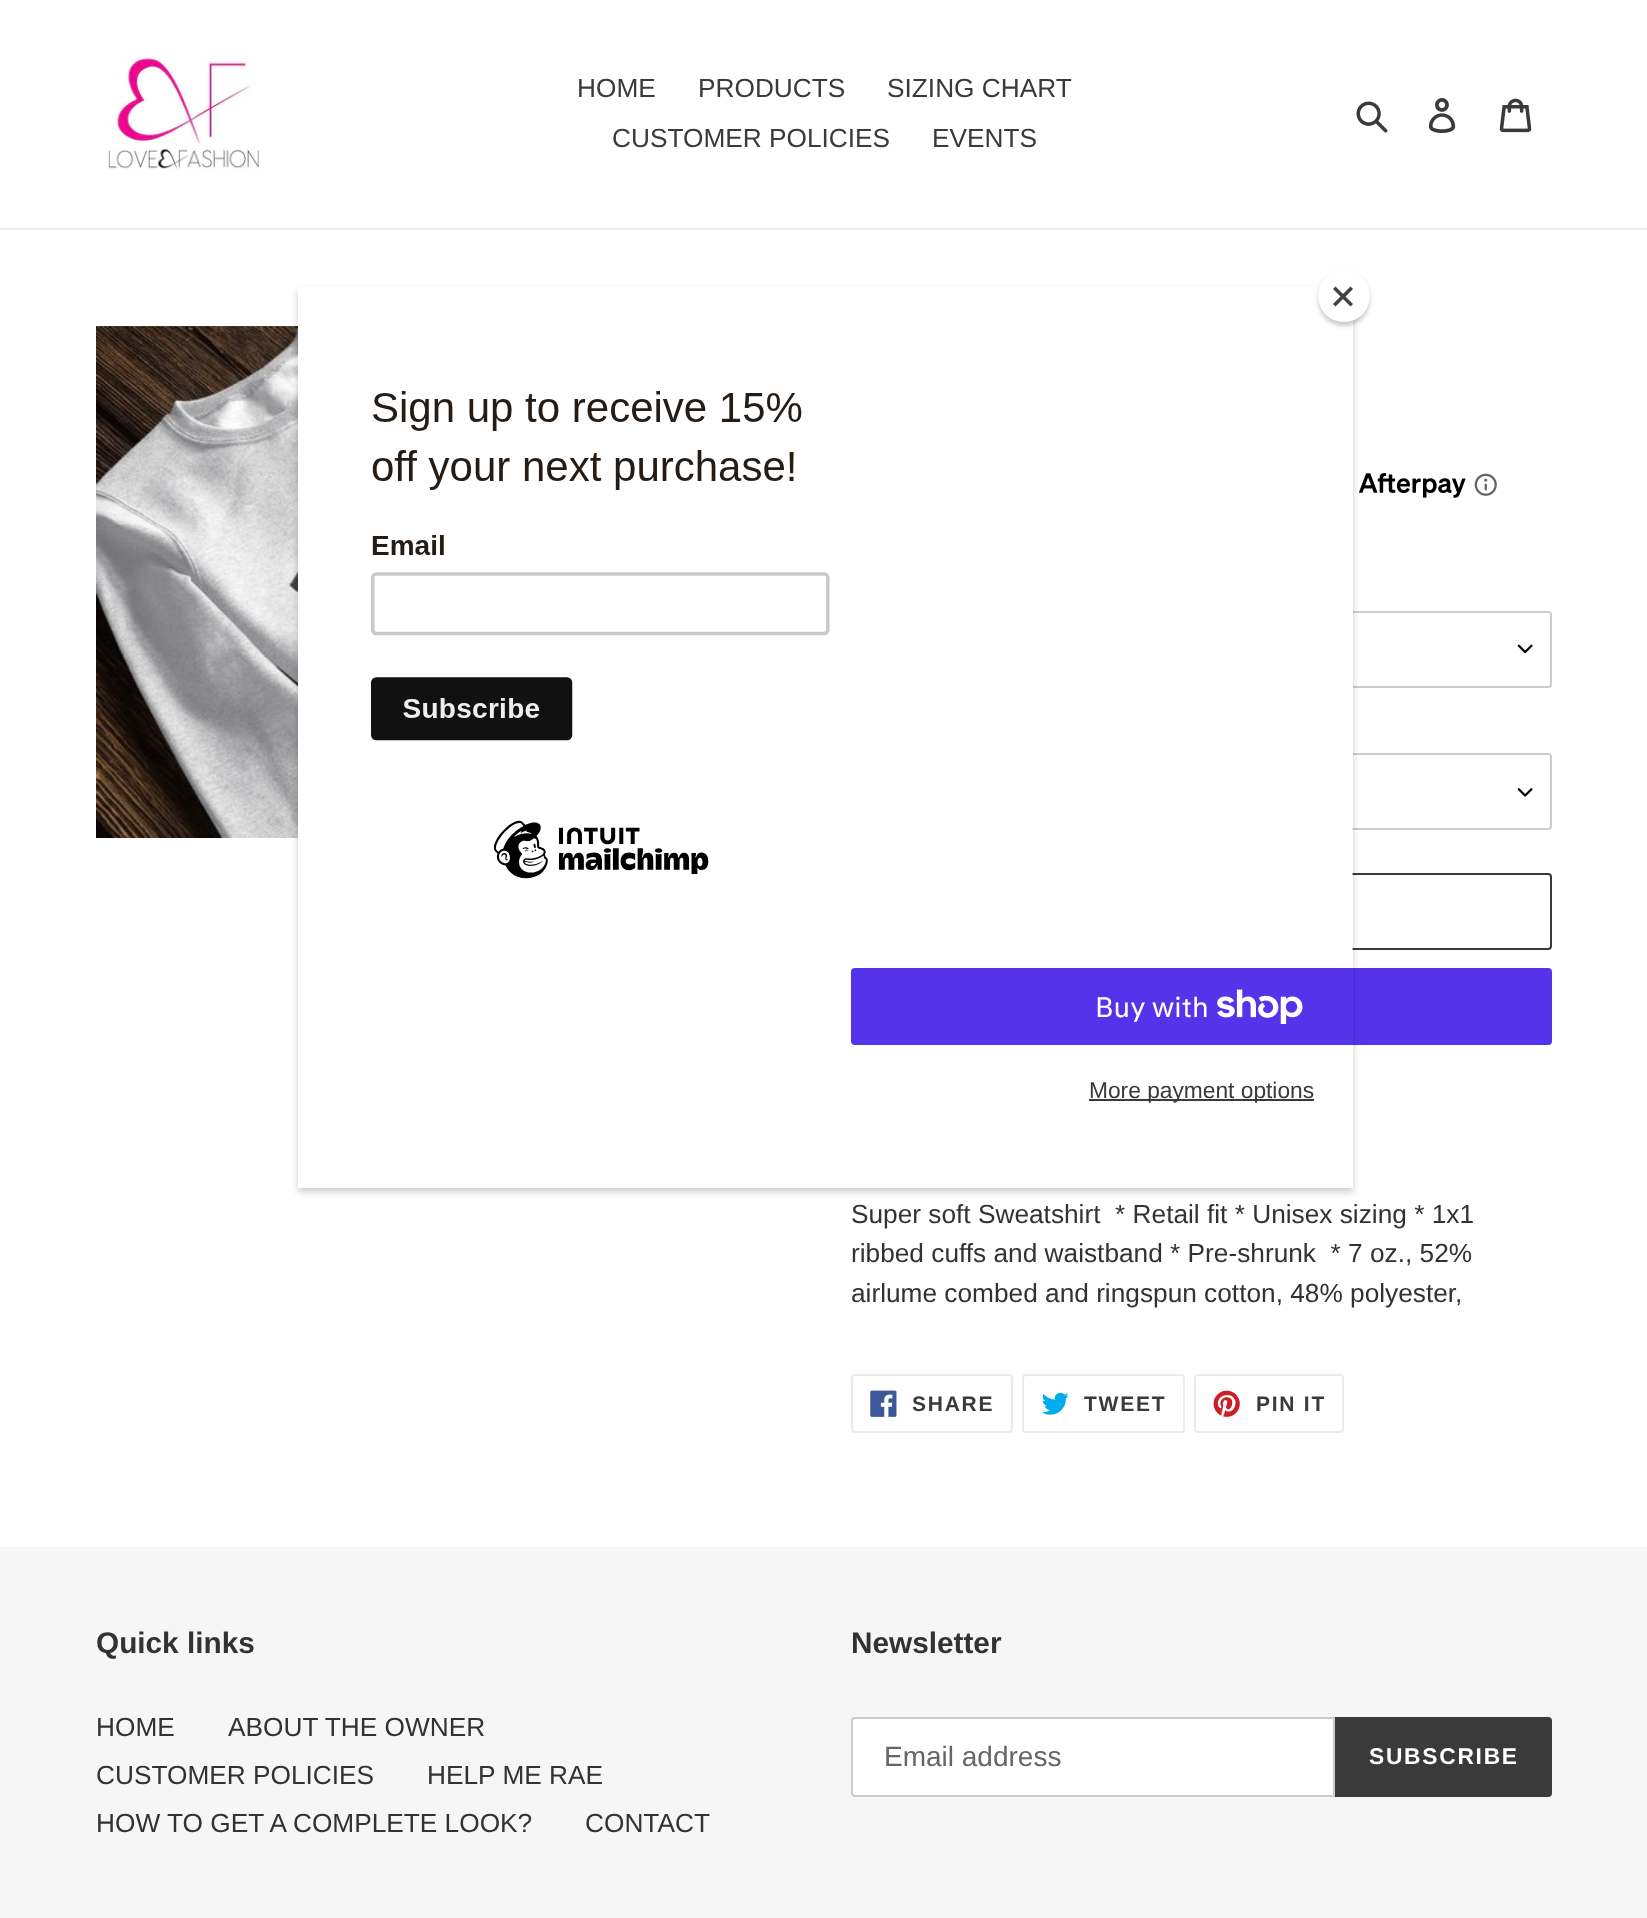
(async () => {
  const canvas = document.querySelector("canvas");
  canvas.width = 1647;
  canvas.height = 1918;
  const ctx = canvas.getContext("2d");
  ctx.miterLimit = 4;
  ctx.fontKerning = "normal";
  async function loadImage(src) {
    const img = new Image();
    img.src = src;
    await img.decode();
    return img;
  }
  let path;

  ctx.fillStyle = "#ffffff";
  ctx.fillRect(0, 0, 1647, 1918);
  ctx.fillStyle = "#ebebeb";
  ctx.fillRect(0, 228, 1647, 2);
  ctx.drawImage(await loadImage("img/1.png"), 108, 57, 152, 113);
  ctx.drawImage(await loadImage("img/2.png"), 1356, 101, 32, 32);
  ctx.drawImage(await loadImage("img/3.png"), 1428, 98, 28, 35);
  ctx.drawImage(await loadImage("img/4.png"), 1499, 98, 33, 35);
  ctx.drawImage(await loadImage("img/6.png"), 96, 326, 202, 512);
  ctx.drawImage(await loadImage("img/7.png"), 1359, 473, 107, 25);
  ctx.drawImage(await loadImage("img/9.png"), 1517, 644, 16, 10);
  ctx.beginPath();
  ctx.roundRect(852, 612, 699, 75, 3);
  ctx.strokeStyle = "#cccccc";
  ctx.lineWidth = 2;
  ctx.stroke();
  ctx.drawImage(await loadImage("img/10.png"), 1517, 788, 16, 9);
  ctx.beginPath();
  ctx.roundRect(852, 754, 699, 75, 3);
  ctx.stroke();
  ctx.beginPath();
  ctx.roundRect(852, 874, 699, 75, 3);
  ctx.strokeStyle = "#3a3a3a";
  ctx.stroke();
  ctx.fillStyle = "#5433eb";
  ctx.beginPath();
  ctx.roundRect(851, 968, 701, 77, 4);
  ctx.fill();
  ctx.drawImage(await loadImage("img/11.png"), 1217, 989, 86, 35);
  ctx.fillStyle = "#3a3a3a";
  ctx.fillRect(1089, 1099, 225, 2);
  ctx.save();
  path = new Path2D("M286 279H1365V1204H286ZM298 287H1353V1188H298Z");
  ctx.clip(path, "evenodd");
  ctx.fillStyle = "rgba(0, 0, 0, 0.2)";
  ctx.filter = "blur(3.5px)";
  ctx.beginPath();
  ctx.rect(298, 291, 1055, 901);
  ctx.fill();
  ctx.filter = "none";
  ctx.restore();
  ctx.drawImage(await loadImage("img/5.png"), 298, 292, 1055, 658);
  ctx.fillStyle = "rgba(0, 0, 0, 0.2)";
  ctx.filter = "blur(2px)";
  ctx.beginPath();
  ctx.roundRect(1318, 273, 52, 53, 26);
  ctx.fill();
  ctx.filter = "none";
  ctx.fillStyle = "#ffffff";
  ctx.beginPath();
  ctx.arc(1344, 296, 26, 0, Math.PI * 2);
  ctx.fill();
  ctx.fillStyle = "#414141";
  path = new Path2D("M1350.5 286.5L1353 289L1335.5 306.5L1333 304Z");
  ctx.fill(path);
  path = new Path2D("M1333 289L1335.5 286.5L1353 304L1350.5 306.5Z");
  ctx.fill(path);
  ctx.drawImage(await loadImage("img/8.png"), 1474, 473, 23, 23);
  ctx.beginPath();
  ctx.roundRect(852, 1375, 160, 57, 3);
  ctx.strokeStyle = "#ebebeb";
  ctx.stroke();
  ctx.drawImage(await loadImage("img/12.png"), 870, 1390, 27, 27);
  ctx.beginPath();
  ctx.roundRect(1023, 1375, 161, 57, 3);
  ctx.stroke();
  ctx.drawImage(await loadImage("img/13.png"), 1041, 1392, 28, 23);
  ctx.beginPath();
  ctx.roundRect(1195, 1375, 148, 57, 3);
  ctx.stroke();
  ctx.drawImage(await loadImage("img/14.png"), 1213, 1390, 27, 27);
  ctx.fillStyle = "#f6f6f6";
  ctx.fillRect(0, 1547, 1647, 371);
  ctx.fillStyle = "#ffffff";
  ctx.beginPath();
  ctx.roundRect(852, 1718, 482, 78, [3, 0, 0, 3]);
  ctx.fill();
  ctx.strokeStyle = "#cccccc";
  ctx.stroke();
  ctx.fillStyle = "#3a3a3a";
  ctx.beginPath();
  ctx.roundRect(1335, 1717, 217, 80, [0, 4, 4, 0]);
  ctx.fill();
  ctx.font = "26.25px Liberation Sans";
  for (const [text, x, y] of [
    ["HOME", 577, 97],
    ["PRODUCTS", 698, 97],
    ["SIZING CHART", 887, 97],
    ["CUSTOMER POLICIES", 612, 147],
    ["EVENTS", 932, 147],
  ]) {
    ctx.fillText(text, x, y);
  }
  ctx.font = "28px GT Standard";
  ctx.fillStyle = "#ffffff";
  ctx.fillText("Buy with", 1095, 1017);
  ctx.font = "22.75px Liberation Sans";
  ctx.fillStyle = "#3a3a3a";
  ctx.fillText("More payment options", 1089, 1098);
  ctx.font = "26.25px Liberation Sans";
  ctx.fillStyle = "#333232";
  for (const [text, x, y] of [
    ["Super soft Sweatshirt  * Retail fit * Unisex sizing * 1x1", 851, 1223],
    ["ribbed cuffs and waistband * Pre-shrunk  * 7 oz., 52%", 851, 1262],
    ["airlume combed and ringspun cotton, 48% polyester,", 851, 1302],
  ]) {
    ctx.fillText(text, x, y);
  }
  ctx.letterSpacing = "1.75px";
  ctx.font = "bold 21px Liberation Sans";
  ctx.fillStyle = "#3a3a3a";
  for (const [text, x, y] of [
    ["SHARE", 912, 1411],
    ["TWEET", 1084, 1411],
    ["PIN IT", 1256, 1411],
  ]) {
    ctx.fillText(text, x, y);
  }
  ctx.letterSpacing = "0px";
  ctx.font = "bold 29.75px Liberation Sans";
  ctx.fillStyle = "#333232";
  ctx.fillText("Quick links", 96, 1653);
  ctx.font = "26.25px Liberation Sans";
  for (const [text, x, y] of [
    ["HOME", 96, 1736],
    ["ABOUT THE OWNER", 228, 1736],
    ["CUSTOMER POLICIES", 96, 1784],
    ["HELP ME RAE", 427, 1784],
    ["HOW TO GET A COMPLETE LOOK?", 96, 1832],
    ["CONTACT", 585, 1832],
  ]) {
    ctx.fillText(text, x, y);
  }
  ctx.font = "bold 29.75px Liberation Sans";
  ctx.fillText("Newsletter", 851, 1653);
  ctx.font = "28px Liberation Sans";
  ctx.fillStyle = "#666666";
  ctx.fillText("Email address", 884, 1766);
  ctx.letterSpacing = "1.75px";
  ctx.font = "bold 22.75px Liberation Sans";
  ctx.fillStyle = "#ffffff";
  ctx.fillText("SUBSCRIBE", 1369, 1764);
})();
